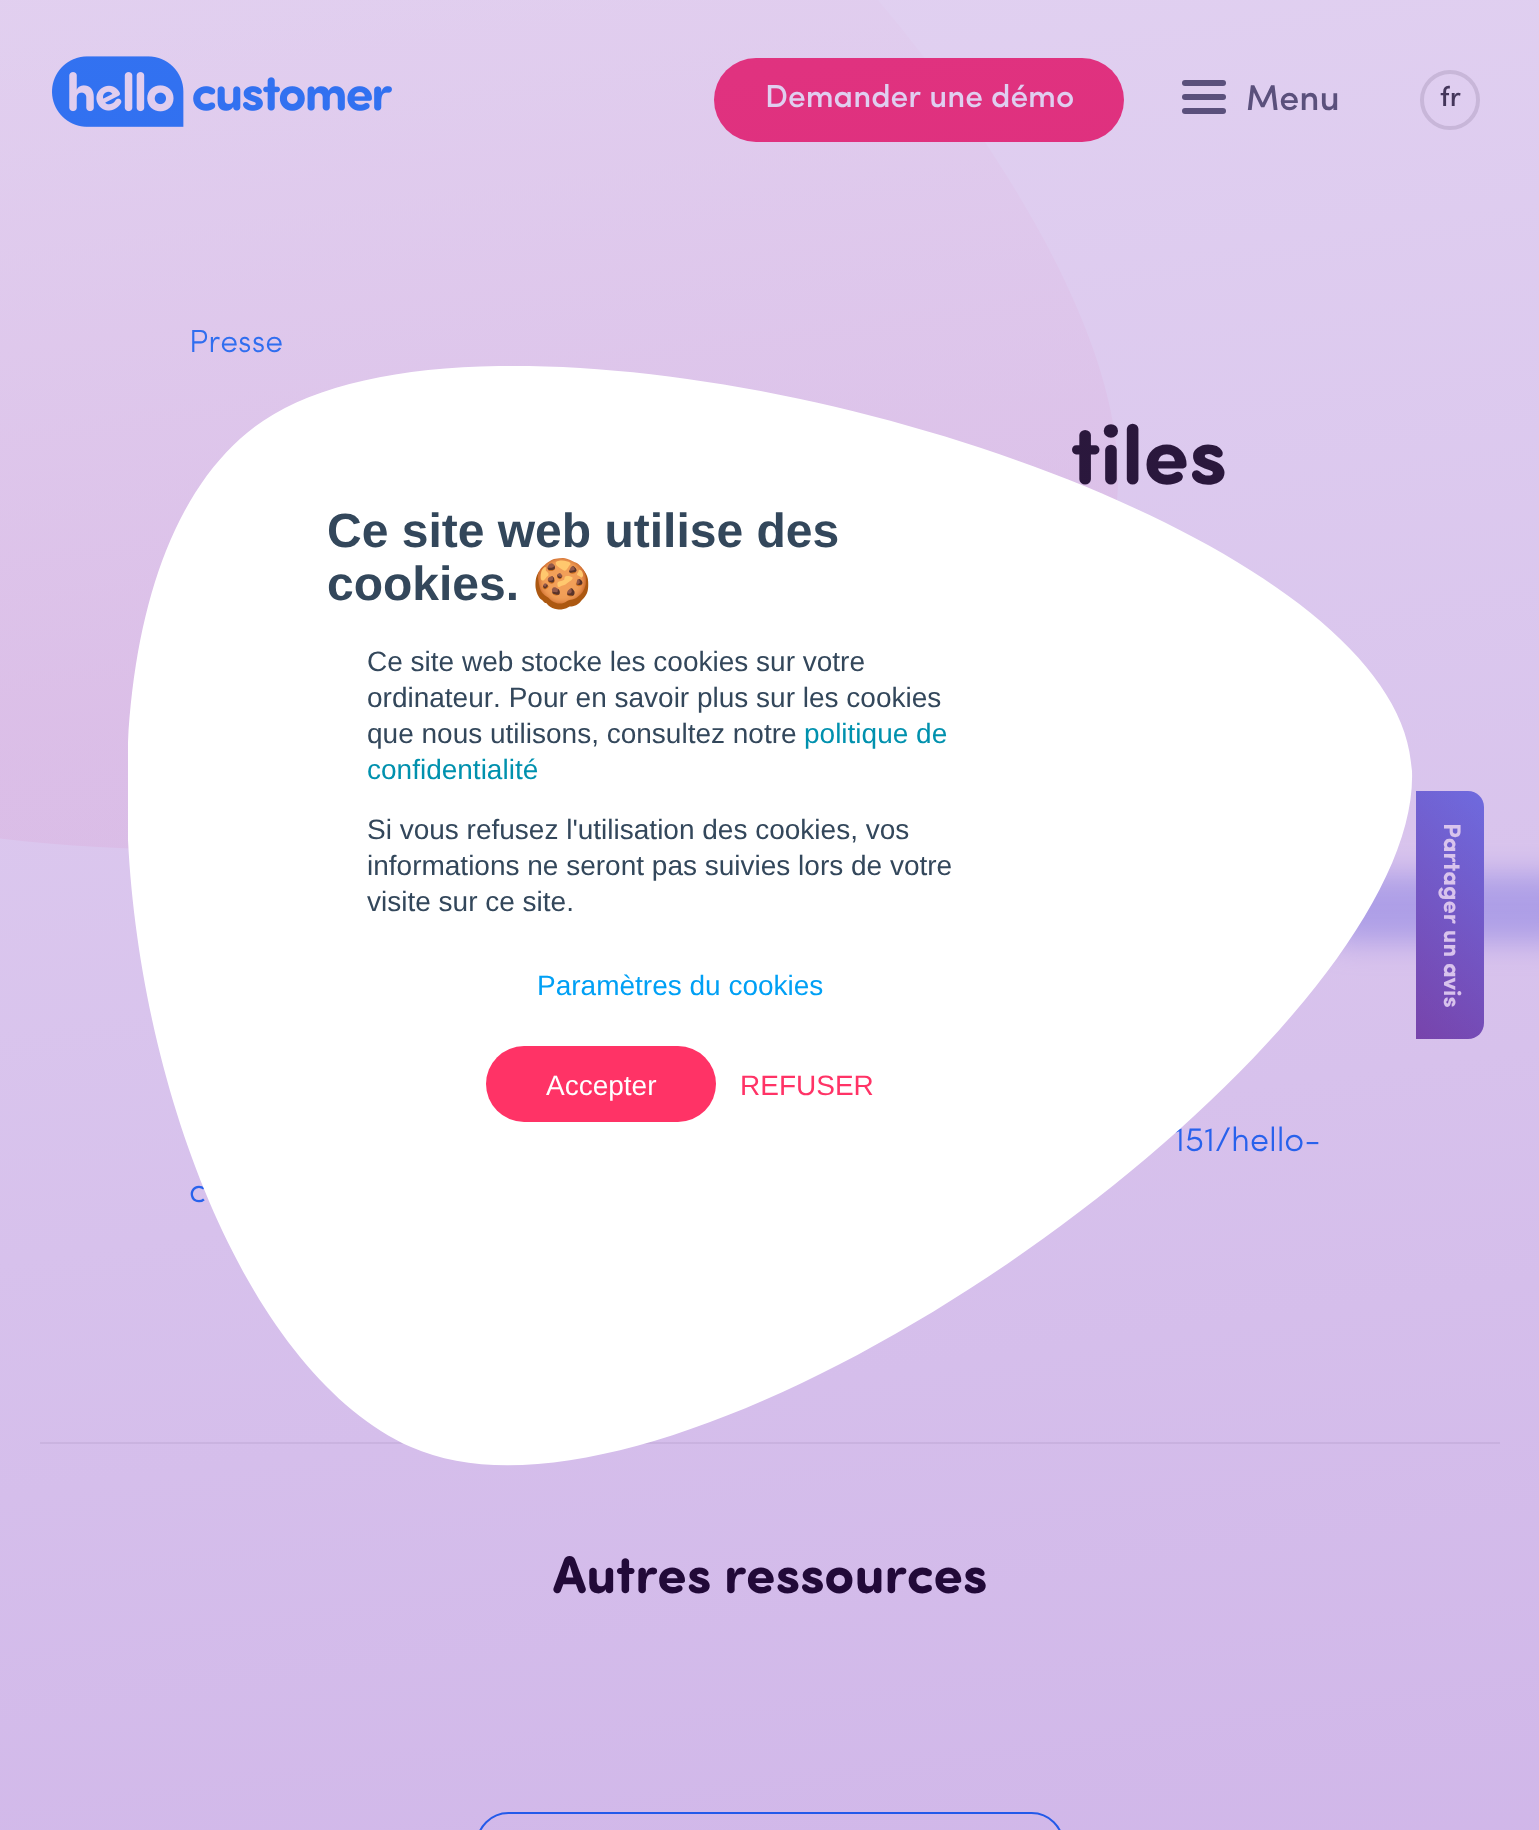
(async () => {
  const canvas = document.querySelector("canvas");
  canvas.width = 1539;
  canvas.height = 1830;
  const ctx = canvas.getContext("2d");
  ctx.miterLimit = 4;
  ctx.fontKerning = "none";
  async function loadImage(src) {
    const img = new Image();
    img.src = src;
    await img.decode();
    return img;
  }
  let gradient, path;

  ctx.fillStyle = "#ffffff";
  ctx.fillRect(0, 0, 1539, 1830);
  gradient = ctx.createLinearGradient(-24, 745, -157, -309);
  gradient.addColorStop(0, "rgba(255, 30, 93, 0.06)");
  gradient.addColorStop(1, "rgba(255, 255, 255, 0.03)");
  ctx.fillStyle = gradient;
  path = new Path2D("M78-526C-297-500-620 366-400 670C-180 974 941 861 1098 565C1181 409 997 107 750-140L82-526Z");
  ctx.fill(path);
  ctx.drawImage(await loadImage("img/1.png"), 52, 56, 340, 71);
  ctx.fillStyle = "#ff1e5d";
  ctx.beginPath();
  ctx.roundRect(714, 58, 410, 84, 42);
  ctx.fill();
  ctx.fillStyle = "#414b59";
  ctx.beginPath();
  ctx.roundRect(1182, 80, 44, 6, 3);
  ctx.fill();
  ctx.beginPath();
  ctx.roundRect(1182, 94, 44, 6, 3);
  ctx.fill();
  ctx.beginPath();
  ctx.roundRect(1182, 108, 44, 6, 3);
  ctx.fill();
  ctx.beginPath();
  ctx.arc(1450, 100, 28, 0, Math.PI * 2);
  ctx.strokeStyle = "#dedede";
  ctx.lineWidth = 4;
  ctx.stroke();
  ctx.fillStyle = "#efefef";
  ctx.fillRect(40, 1442, 1460, 2);
  ctx.beginPath();
  ctx.roundRect(477, 1813, 586, 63, 44);
  ctx.strokeStyle = "#0577ff";
  ctx.lineWidth = 2;
  ctx.stroke();
  ctx.fillStyle = "rgba(102, 126, 234, 0.4)";
  ctx.filter = "blur(15px)";
  ctx.beginPath();
  ctx.roundRect(1326, 874, 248, 68, 16);
  ctx.fill();
  ctx.filter = "none";
  gradient = ctx.createLinearGradient(1529, 836, 1371, 994);
  gradient.addColorStop(0, "#667eea");
  gradient.addColorStop(1, "#764ba2");
  ctx.fillStyle = gradient;
  path = new Path2D("M1484 807V1023C1484 1032 1477 1039 1468 1039H1416V791H1468C1477 791 1484 798 1484 807Z");
  ctx.fill(path);
  ctx.font = "500 32px Sofia";
  ctx.fillStyle = "#ffffff";
  ctx.fillText("Demander une démo", 765, 107);
  ctx.font = "500 36px Sofia";
  ctx.fillStyle = "#414b59";
  ctx.fillText("Menu", 1246, 110);
  ctx.font = "500 28px Sofia";
  ctx.fillStyle = "#212529";
  ctx.fillText("fr", 1440, 106);
  ctx.font = "300 32px Sofia";
  ctx.fillStyle = "#0577ff";
  ctx.fillText("Presse", 189, 352);
  ctx.font = "83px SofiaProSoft";
  ctx.fillStyle = "#000000";
  ctx.fillText("tiles", 1071, 484);
  ctx.font = "300 34px Sofia";
  ctx.fillStyle = "#0577ff";
  ctx.fillText("151/hello-", 1174, 1151);
  ctx.fillText("c", 189, 1202);
  ctx.font = "53.5px SofiaProSoft";
  ctx.fillStyle = "#000000";
  ctx.fillText("Autres ressources", 552, 1593);
  ctx.font = "bold 24px Sofia";
  ctx.fillStyle = "#ffffff";
  ctx.save();
  ctx.translate(1444, 823);
  ctx.rotate(90 * Math.PI / 180);
  ctx.fillText("Partager un avis", 0, 0);
  ctx.restore();
  gradient = ctx.createLinearGradient(629, -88, 911, 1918);
  gradient.addColorStop(0, "rgba(157, 104, 208, 0.3)");
  gradient.addColorStop(1, "rgba(101, 16, 182, 0.3)");
  ctx.fillStyle = gradient;
  ctx.fillRect(0, 0, 1539, 1830);
  ctx.save();
  ctx.beginPath();
  ctx.rect(128, 366, 1286, 1100);
  ctx.clip();
  ctx.fillStyle = "#ffffff";
  path = new Path2D("M263 421C513 252 1403 501 1412 771C1422 1041 686 1570 411 1447C135 1323 12 590 263 421Z");
  ctx.fill(path, "evenodd");
  ctx.restore();
  ctx.font = "28px Liberation Sans";
  ctx.fillStyle = "#ff3366";
  ctx.fillText("REFUSER", 740, 1095);
  ctx.beginPath();
  ctx.roundRect(486, 1046, 230, 76, 38);
  ctx.fill();
  ctx.fillStyle = "#ffffff";
  ctx.fillText("Accepter", 546, 1095);
  ctx.fillStyle = "#00a0f5";
  ctx.fillText("Paramètres du cookies", 537, 995);
  ctx.fillStyle = "#33475b";
  for (const [text, x, y] of [
    ["visite sur ce site.", 367, 911],
    ["informations ne seront pas suivies lors de votre", 367, 875],
    ["Si vous refusez l'utilisation des cookies, vos", 367, 839],
  ]) {
    ctx.fillText(text, x, y);
  }
  ctx.fillStyle = "#0091ae";
  ctx.fillText("confidentialité", 367, 779);
  ctx.fillText("politique de", 804, 743);
  ctx.fillStyle = "#33475b";
  for (const [text, x, y] of [
    ["que nous utilisons, consultez notre", 367, 743],
    ["ordinateur. Pour en savoir plus sur les cookies", 367, 707],
    ["Ce site web stocke les cookies sur votre", 367, 671],
  ]) {
    ctx.fillText(text, x, y);
  }
  ctx.font = "bold 48px Noto Color Emoji";
  ctx.fillText("🍪", 532, 600);
  ctx.font = "bold 48px Liberation Sans";
  ctx.fillText("cookies.", 327, 600);
  ctx.fillText("Ce site web utilise des", 327, 547);
})();
